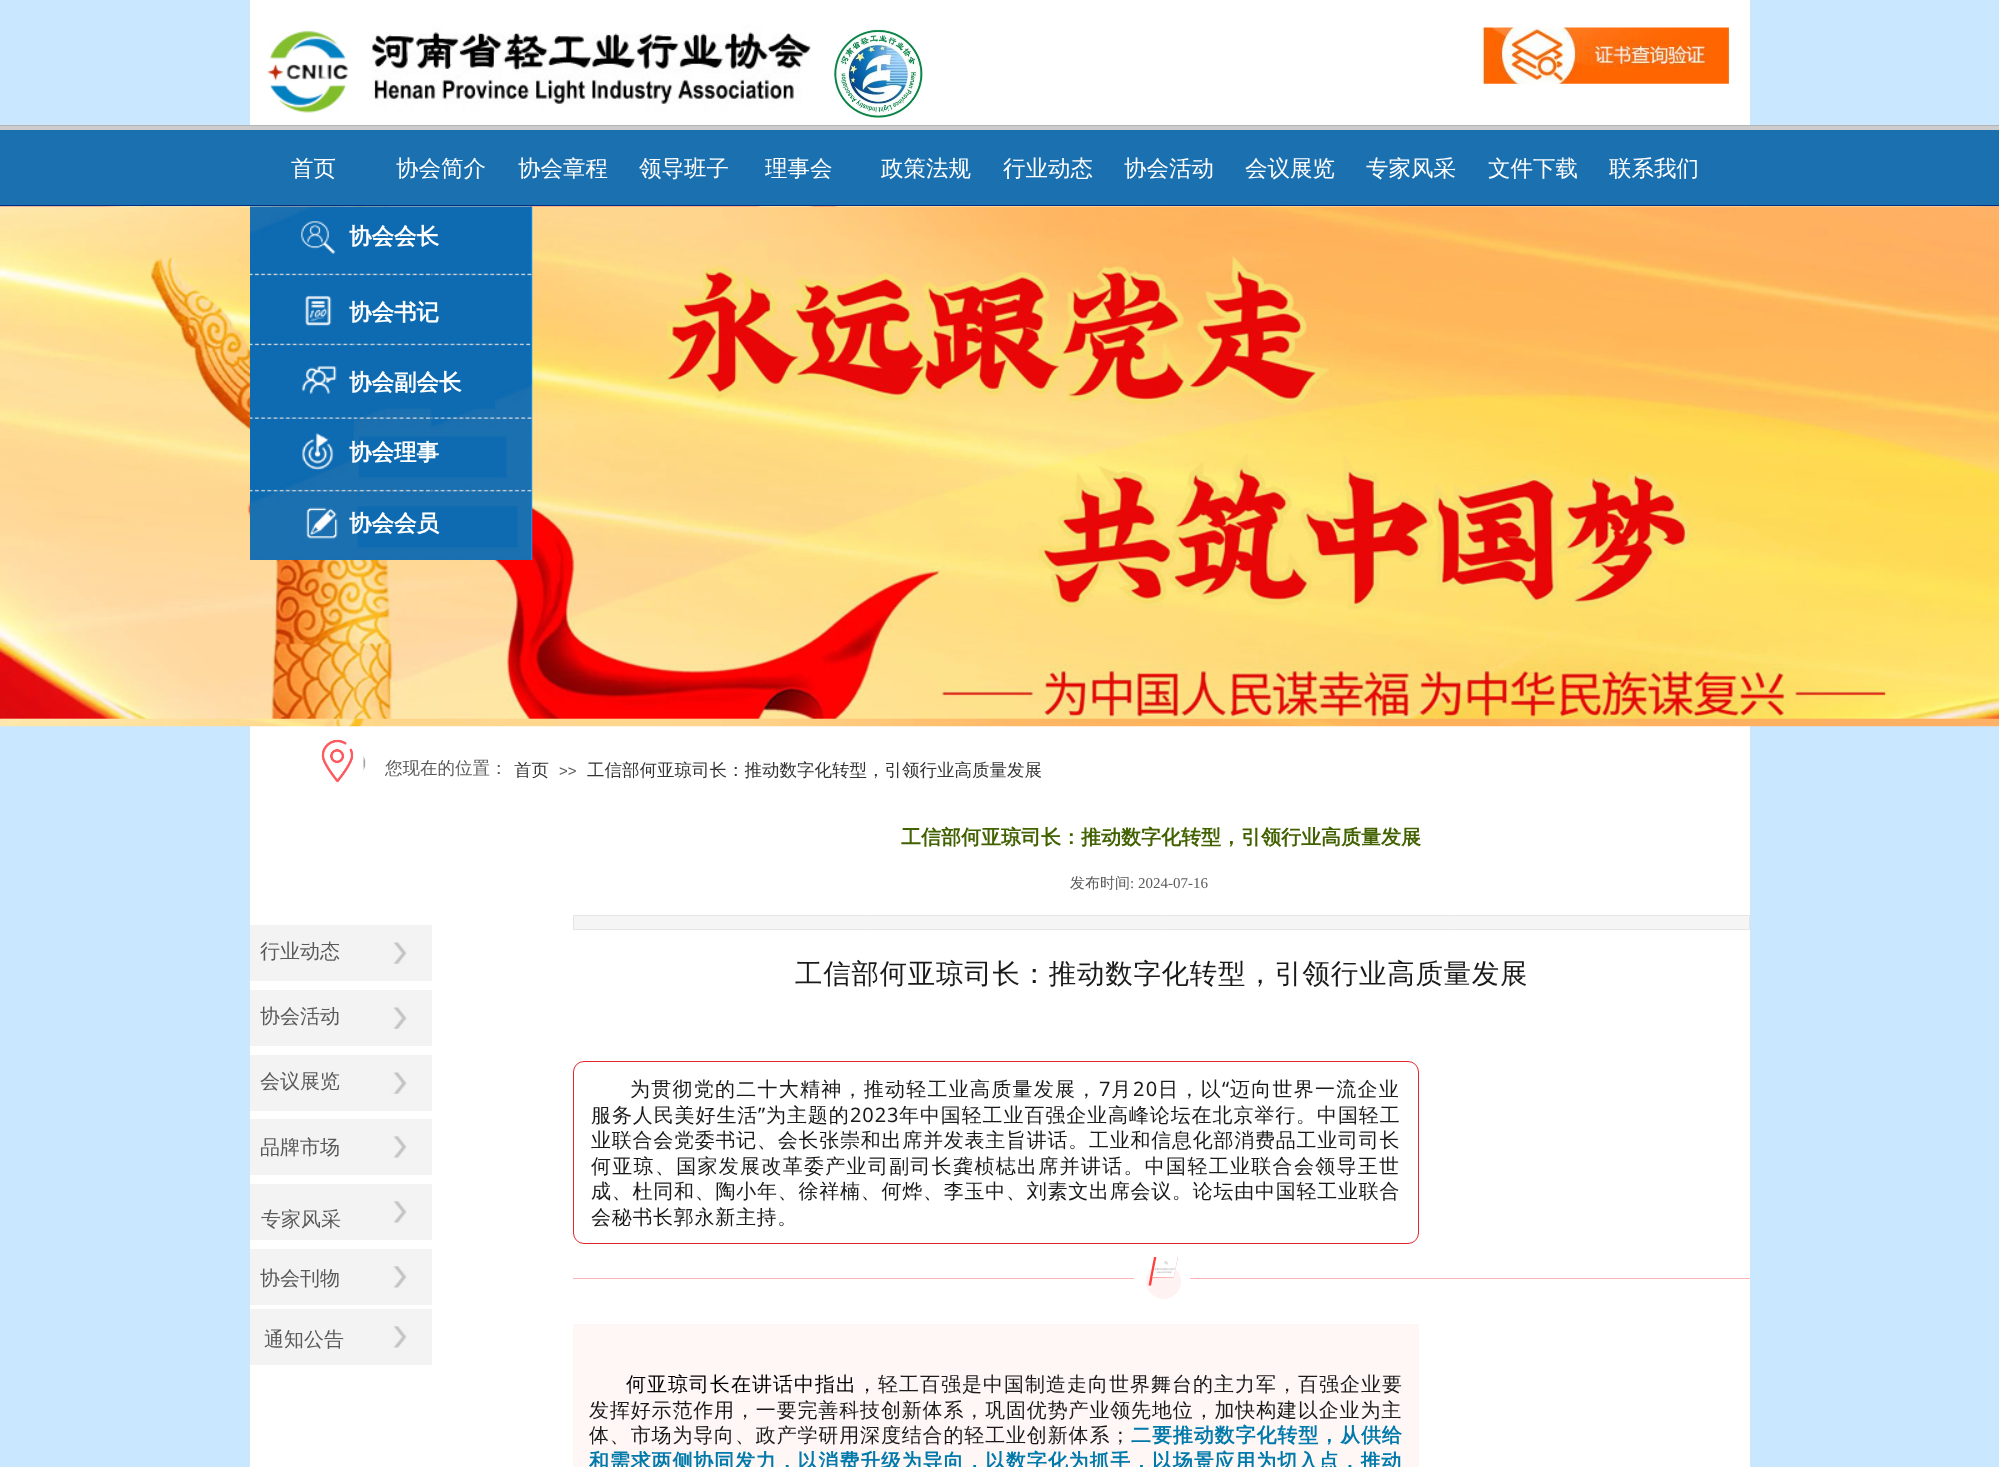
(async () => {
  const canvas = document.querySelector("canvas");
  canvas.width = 1999;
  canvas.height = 1467;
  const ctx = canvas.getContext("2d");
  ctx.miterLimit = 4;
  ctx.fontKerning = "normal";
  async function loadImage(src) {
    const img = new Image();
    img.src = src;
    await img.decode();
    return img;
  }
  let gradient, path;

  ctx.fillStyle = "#c9e7ff";
  ctx.fillRect(0, 0, 1999, 1467);
  ctx.fillStyle = "#ffffff";
  ctx.fillRect(250, 0, 1500, 1467);
  ctx.drawImage(await loadImage("img/1.png"), 267, 25, 544, 88);
  ctx.drawImage(await loadImage("img/2.png"), 833, 29, 90, 89);
  ctx.drawImage(await loadImage("img/3.png"), 1480, 27, 250, 57);
  for (const [x, y, w, h, color] of [
    [0, 125, 1999, 1, "#b4b4b4"],
    [0, 126, 1999, 4, "#cccccc"],
    [0, 130, 1999, 75, "#1b70b0"],
    [0, 205, 1999, 1, "#002e83"],
  ]) {
    ctx.fillStyle = color;
    ctx.fillRect(x, y, w, h);
  }
  ctx.drawImage(await loadImage("img/4.png"), 0, 206, 1999, 521);
  ctx.drawImage(await loadImage("img/5.png"), 250, 206, 283, 354);
  ctx.drawImage(await loadImage("img/7.png"), 363, 755, 3, 17);
  ctx.drawImage(await loadImage("img/6.png"), 321, 739, 43, 45);
  ctx.drawImage(await loadImage("img/8.png"), 250, 925, 182, 56);
  ctx.fillStyle = "#f5f5f5";
  ctx.beginPath();
  ctx.rect(573.5, 915.5, 1176, 14);
  ctx.fill();
  ctx.strokeStyle = "#e5e5e5";
  ctx.stroke();
  ctx.beginPath();
  ctx.roundRect(573.5, 1061.5, 845, 182, 10.5);
  ctx.strokeStyle = "#e1282f";
  ctx.stroke();
  ctx.fillStyle = "#ffb5b5";
  ctx.fillRect(573, 1278, 561, 1);
  ctx.fillStyle = "#fff2f2";
  ctx.beginPath();
  ctx.arc(1163.5, 1281.5, 17.5, 0, Math.PI * 2);
  ctx.fill();
  ctx.fillStyle = "#ff4040";
  path = new Path2D("M1154 1257H1156.5L1151 1285.5H1148.5Z");
  ctx.fill(path);
  gradient = ctx.createLinearGradient(1155, 1267, 1176, 1267);
  gradient.addColorStop(0, "#ff3f40");
  gradient.addColorStop(1, "rgba(255, 63, 64, 0.5)");
  ctx.fillStyle = gradient;
  path = new Path2D("M1156.5 1257H1178L1173.5 1278H1152.5Z");
  ctx.fill(path);
  ctx.drawImage(await loadImage("img/9.png"), 1152, 1257, 26, 21);
  ctx.fillStyle = "#ffb5b5";
  ctx.fillRect(1190, 1278, 560, 1);
  ctx.fillStyle = "#fff6f6";
  ctx.fillRect(573, 1324, 846, 143);
  ctx.drawImage(await loadImage("img/8.png"), 250, 990, 182, 56);
  ctx.drawImage(await loadImage("img/8.png"), 250, 1055, 182, 56);
  ctx.drawImage(await loadImage("img/10.png"), 250, 1119, 182, 56);
  ctx.drawImage(await loadImage("img/10.png"), 250, 1184, 182, 56);
  ctx.drawImage(await loadImage("img/10.png"), 250, 1249, 182, 56);
  ctx.drawImage(await loadImage("img/10.png"), 250, 1309, 182, 56);
  ctx.font = "500 22.5px WenQuanYi Zen Hei";
  ctx.fillStyle = "#ffffff";
  for (const [text, x, y] of [
    ["首页", 291, 176],
    ["协会简介", 396, 176],
    ["协会章程", 518, 176],
    ["领导班子", 639, 176],
    ["理事会", 765, 176],
    ["政策法规", 881, 176],
    ["行业动态", 1003, 176],
    ["协会活动", 1124, 176],
    ["会议展览", 1245, 176],
    ["专家风采", 1366, 176],
    ["文件下载", 1488, 176],
    ["联系我们", 1609, 176],
  ]) {
    ctx.fillText(text, x, y);
  }
  ctx.font = "bold 22.5px WenQuanYi Zen Hei";
  for (const [text, x, y] of [
    ["协会会长", 349, 244],
    ["协会书记", 349, 320],
    ["协会副会长", 349, 390],
    ["协会理事", 349, 460],
    ["协会会员", 349, 531],
  ]) {
    ctx.fillText(text, x, y);
  }
  ctx.font = "500 17.5px WenQuanYi Zen Hei";
  ctx.fillStyle = "#5a5a5a";
  ctx.fillText("您现在的位置：", 385, 774);
  ctx.fillStyle = "#333333";
  ctx.fillText("首页", 514, 776);
  ctx.font = "15px Liberation Sans";
  ctx.fillStyle = "#5a5a5a";
  ctx.fillText(">>", 559, 776);
  ctx.font = "500 17.5px WenQuanYi Zen Hei";
  ctx.fillStyle = "#333333";
  ctx.fillText("工信部何亚琼司长：推动数字化转型，引领行业高质量发展", 587, 776);
  ctx.font = "bold 20px WenQuanYi Zen Hei";
  ctx.fillStyle = "#426100";
  ctx.fillText("工信部何亚琼司长：推动数字化转型，引领行业高质量发展", 901, 844);
  ctx.font = "500 15px WenQuanYi Zen Hei";
  ctx.fillStyle = "#5a5a5a";
  ctx.fillText("发布时间", 1070, 888);
  ctx.font = "15px Liberation Serif";
  ctx.fillText(": 2024-07-16", 1130, 888);
  ctx.letterSpacing = "0.7px";
  ctx.font = "500 27.5px WenQuanYi Zen Hei";
  ctx.fillStyle = "#1a1a1a";
  ctx.fillText("工信部何亚琼司长：推动数字化转型，引领行业高质量发展", 795, 983);
  ctx.letterSpacing = "1.25px";
  ctx.font = "500 20px WenQuanYi Zen Hei";
  ctx.fillText("为贯彻党的二十大精神，推动轻工业高质量发展，", 630, 1096);
  ctx.font = "20px Noto Sans";
  ctx.fillText("7", 1099, 1096);
  ctx.font = "500 20px WenQuanYi Zen Hei";
  ctx.fillText("月", 1111, 1096);
  ctx.font = "20px Noto Sans";
  ctx.fillText("20", 1133, 1096);
  ctx.font = "500 20px WenQuanYi Zen Hei";
  ctx.fillText("日，以", 1158, 1096);
  ctx.font = "20px Noto Sans";
  ctx.fillText("“", 1222, 1096);
  ctx.font = "500 20px WenQuanYi Zen Hei";
  ctx.fillText("迈向世界一流企业", 1230, 1096);
  ctx.letterSpacing = "0.9px";
  ctx.fillText("服务人民美好生活", 591, 1122);
  ctx.font = "20px Noto Sans";
  ctx.fillText("”", 758, 1122);
  ctx.font = "500 20px WenQuanYi Zen Hei";
  ctx.fillText("为主题的", 766, 1122);
  ctx.font = "20px Noto Sans";
  ctx.fillText("2023", 850, 1122);
  ctx.font = "500 20px WenQuanYi Zen Hei";
  ctx.fillText("年中国轻工业百强企业高峰论坛在北京举行。中国轻工", 899, 1122);
  ctx.letterSpacing = "0.75px";
  ctx.fillText("业联合会党委书记、会长张崇和出席并发表主旨讲话。工业和信息化部消费品工业司司长", 591, 1147);
  ctx.letterSpacing = "1.3px";
  ctx.fillText("何亚琼、国家发展改革委产业司副司长龚桢梽出席并讲话。中国轻工业联合会领导王世", 591, 1173);
  ctx.letterSpacing = "0.75px";
  ctx.fillText("成、杜同和、陶小年、徐祥楠、何烨、李玉中、刘素文出席会议。论坛由中国轻工业联合", 591, 1198);
  ctx.letterSpacing = "0.7px";
  ctx.fillText("会秘书长郭永新主持。", 591, 1224);
  ctx.letterSpacing = "1px";
  ctx.fillStyle = "#000000";
  ctx.fillText("何亚琼司长在讲话中指出，", 626, 1391);
  ctx.fillStyle = "#1a1a1a";
  ctx.fillText("轻工百强是中国制造走向世界舞台的主力军，百强企业要", 878, 1391);
  ctx.letterSpacing = "0.85px";
  ctx.fillText("发挥好示范作用，一要完善科技创新体系，巩固优势产业领先地位，加快构建以企业为主", 589, 1417);
  ctx.fillText("体、市场为导向、政产学研用深度结合的轻工业创新体系；", 589, 1442);
  ctx.letterSpacing = "0.9px";
  ctx.font = "bold 20px WenQuanYi Zen Hei";
  ctx.fillStyle = "#007aaa";
  ctx.fillText("二要推动数字化转型，从供给", 1131, 1442);
  ctx.letterSpacing = "0.85px";
  ctx.fillText("和需求两侧协同发力，以消费升级为导向，以数字化为抓手，以场景应用为切入点，推动", 589, 1468);
  ctx.letterSpacing = "0px";
  ctx.font = "500 20px WenQuanYi Zen Hei";
  ctx.fillStyle = "#5a5a5a";
  for (const [text, x, y] of [
    ["行业动态", 260, 958],
    ["协会活动", 260, 1023],
    ["会议展览", 260, 1088],
    ["品牌市场", 260, 1154],
    ["专家风采", 261, 1226],
    ["协会刊物", 260, 1285],
    ["通知公告", 264, 1346],
  ]) {
    ctx.fillText(text, x, y);
  }
})();
